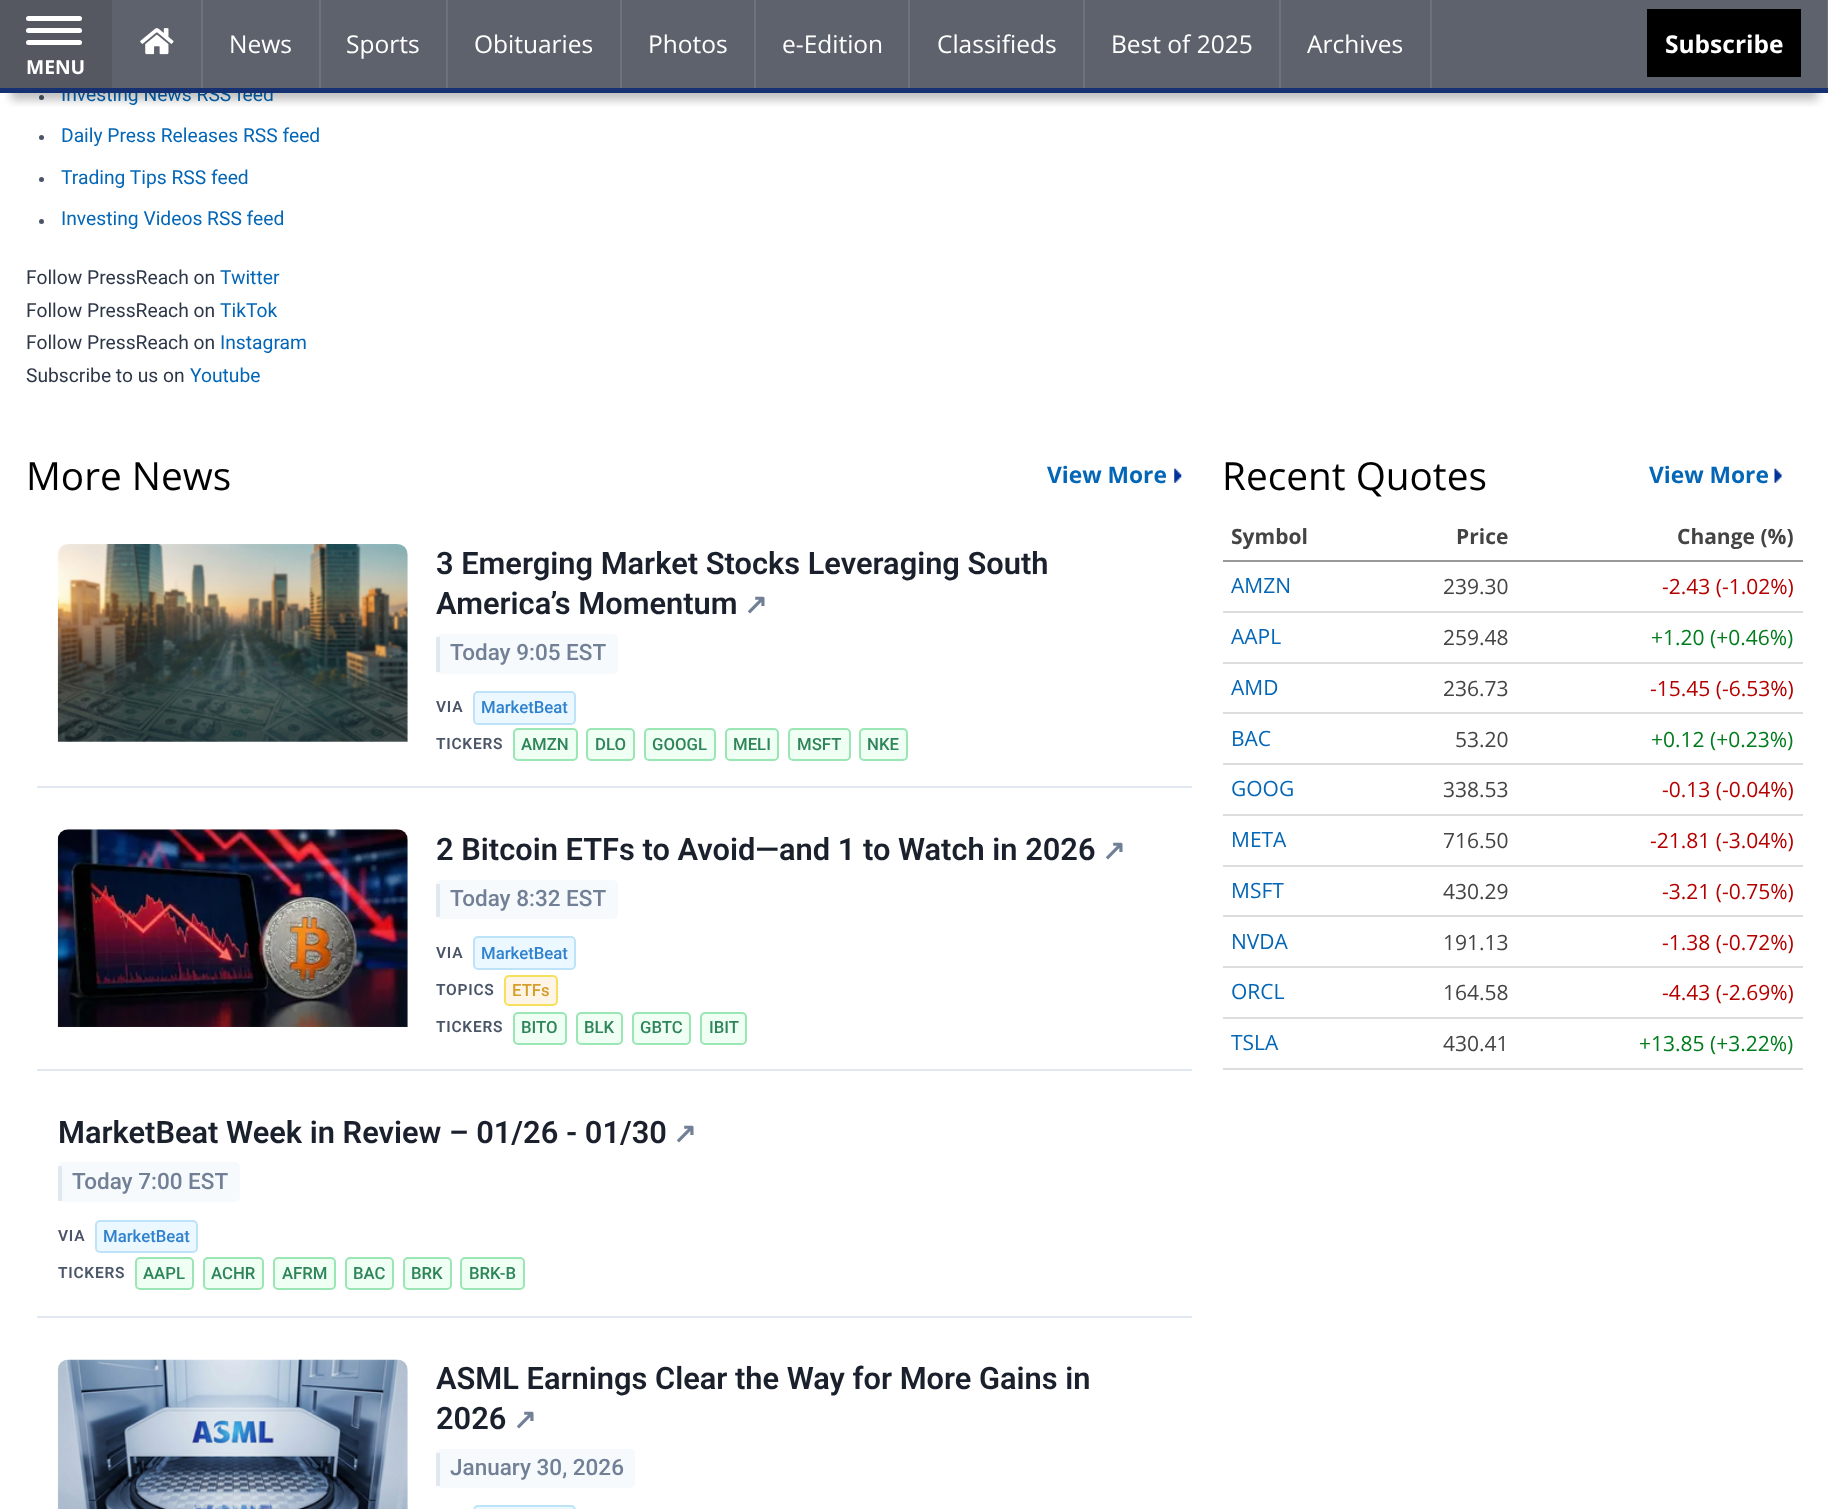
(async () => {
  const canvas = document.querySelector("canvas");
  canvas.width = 1828;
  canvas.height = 1509;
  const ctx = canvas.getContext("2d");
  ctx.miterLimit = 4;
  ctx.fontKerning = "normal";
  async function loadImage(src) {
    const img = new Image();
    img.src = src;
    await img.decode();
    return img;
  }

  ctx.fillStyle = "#ffffff";
  ctx.fillRect(0, 0, 1828, 1509);
  ctx.fillStyle = "#4a5568";
  ctx.beginPath();
  ctx.arc(41.5, 97.5, 2.5, 0, Math.PI * 2);
  ctx.fill();
  ctx.beginPath();
  ctx.arc(41.5, 137.5, 2.5, 0, Math.PI * 2);
  ctx.fill();
  ctx.beginPath();
  ctx.arc(41.5, 179.5, 2.5, 0, Math.PI * 2);
  ctx.fill();
  ctx.beginPath();
  ctx.arc(41.5, 221.5, 2.5, 0, Math.PI * 2);
  ctx.fill();
  ctx.drawImage(await loadImage("img/2.png"), 1174, 468, 8, 15);
  ctx.fillStyle = "#e2e8f0";
  ctx.fillRect(37, 786, 1155, 2);
  ctx.drawImage(await loadImage("img/3.png"), 57, 544, 351, 198);
  ctx.fillStyle = "#f7fafc";
  ctx.beginPath();
  ctx.roundRect(436, 634, 182, 40, 5);
  ctx.fill();
  ctx.fillStyle = "#e2e8f0";
  ctx.fillRect(436, 637, 4, 35);
  ctx.fillStyle = "#ebf8ff";
  ctx.beginPath();
  ctx.roundRect(474, 692, 101, 32, 4);
  ctx.fill();
  ctx.strokeStyle = "#bee3f8";
  ctx.lineWidth = 2;
  ctx.stroke();
  ctx.fillStyle = "#f0fff4";
  ctx.beginPath();
  ctx.roundRect(514, 729, 63, 31, 4);
  ctx.fill();
  ctx.strokeStyle = "#9ae6b4";
  ctx.stroke();
  ctx.beginPath();
  ctx.roundRect(587, 729, 47, 31, 4);
  ctx.fill();
  ctx.stroke();
  ctx.beginPath();
  ctx.roundRect(645, 729, 70, 31, 4);
  ctx.fill();
  ctx.stroke();
  ctx.beginPath();
  ctx.roundRect(726, 729, 52, 31, 4);
  ctx.fill();
  ctx.stroke();
  ctx.beginPath();
  ctx.roundRect(789, 729, 61, 31, 4);
  ctx.fill();
  ctx.stroke();
  ctx.beginPath();
  ctx.roundRect(860, 729, 47, 31, 4);
  ctx.fill();
  ctx.stroke();
  ctx.fillStyle = "#e2e8f0";
  ctx.fillRect(37, 1069, 1155, 2);
  ctx.drawImage(await loadImage("img/4.png"), 57, 829, 351, 198);
  ctx.fillStyle = "#f7fafc";
  ctx.beginPath();
  ctx.roundRect(436, 880, 182, 39, 5);
  ctx.fill();
  ctx.fillStyle = "#e2e8f0";
  ctx.fillRect(436, 884, 4, 33);
  ctx.fillStyle = "#ebf8ff";
  ctx.beginPath();
  ctx.roundRect(474, 937, 101, 32, 4);
  ctx.fill();
  ctx.strokeStyle = "#bee3f8";
  ctx.stroke();
  ctx.fillStyle = "#fef5e7";
  ctx.beginPath();
  ctx.roundRect(505, 976, 52, 29, 4);
  ctx.fill();
  ctx.strokeStyle = "#f6e05e";
  ctx.stroke();
  ctx.fillStyle = "#f0fff4";
  ctx.beginPath();
  ctx.roundRect(514, 1013, 52, 31, 4);
  ctx.fill();
  ctx.strokeStyle = "#9ae6b4";
  ctx.stroke();
  ctx.beginPath();
  ctx.roundRect(577, 1013, 45, 31, 4);
  ctx.fill();
  ctx.stroke();
  ctx.beginPath();
  ctx.roundRect(633, 1013, 57, 31, 4);
  ctx.fill();
  ctx.stroke();
  ctx.beginPath();
  ctx.roundRect(701, 1013, 45, 31, 4);
  ctx.fill();
  ctx.stroke();
  ctx.fillStyle = "#e2e8f0";
  ctx.fillRect(37, 1316, 1155, 2);
  ctx.fillStyle = "#f7fafc";
  ctx.beginPath();
  ctx.roundRect(58, 1162, 182, 40, 5);
  ctx.fill();
  ctx.fillStyle = "#e2e8f0";
  ctx.fillRect(58, 1166, 4, 35);
  ctx.fillStyle = "#ebf8ff";
  ctx.beginPath();
  ctx.roundRect(96, 1221, 101, 31, 4);
  ctx.fill();
  ctx.strokeStyle = "#bee3f8";
  ctx.stroke();
  ctx.fillStyle = "#f0fff4";
  ctx.beginPath();
  ctx.roundRect(136, 1258, 57, 31, 4);
  ctx.fill();
  ctx.strokeStyle = "#9ae6b4";
  ctx.stroke();
  ctx.beginPath();
  ctx.roundRect(204, 1258, 59, 31, 4);
  ctx.fill();
  ctx.stroke();
  ctx.beginPath();
  ctx.roundRect(274, 1258, 61, 31, 4);
  ctx.fill();
  ctx.stroke();
  ctx.beginPath();
  ctx.roundRect(346, 1258, 47, 31, 4);
  ctx.fill();
  ctx.stroke();
  ctx.beginPath();
  ctx.roundRect(404, 1258, 47, 31, 4);
  ctx.fill();
  ctx.stroke();
  ctx.beginPath();
  ctx.roundRect(461, 1258, 63, 31, 4);
  ctx.fill();
  ctx.stroke();
  ctx.drawImage(await loadImage("img/5.png"), 57, 1359, 351, 150);
  ctx.fillStyle = "#f7fafc";
  ctx.beginPath();
  ctx.roundRect(436, 1449, 199, 39, 5);
  ctx.fill();
  ctx.fillStyle = "#e2e8f0";
  ctx.fillRect(436, 1453, 4, 33);
  ctx.fillStyle = "#ebf8ff";
  ctx.beginPath();
  ctx.roundRect(474, 1506, 101, 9, 4);
  ctx.fill();
  ctx.strokeStyle = "#bee3f8";
  ctx.stroke();
  ctx.drawImage(await loadImage("img/6.png"), 1774, 468, 8, 15);
  for (const [x, y, w, h, color] of [
    [1223, 560, 580, 2, "#999999"],
    [1223, 611, 580, 2, "#dddddd"],
    [1223, 662, 580, 2, "#dddddd"],
    [1223, 712, 580, 2, "#dddddd"],
    [1223, 763, 580, 2, "#dddddd"],
    [1223, 814, 580, 2, "#dddddd"],
    [1223, 865, 580, 2, "#dddddd"],
    [1223, 915, 580, 2, "#dddddd"],
    [1223, 966, 580, 2, "#dddddd"],
    [1223, 1017, 580, 2, "#dddddd"],
    [1223, 1068, 580, 2, "#dddddd"],
  ]) {
    ctx.fillStyle = color;
    ctx.fillRect(x, y, w, h);
  }
  ctx.font = "19.25px Roboto";
  ctx.fillStyle = "#0466b6";
  ctx.fillText("Investing News RSS feed", 61, 101);
  ctx.fillStyle = "#5e626c";
  ctx.fillRect(112, 0, 1715, 88);
  ctx.save();
  ctx.beginPath();
  ctx.rect(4, 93, 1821, 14);
  ctx.clip();
  ctx.fillStyle = "rgba(0, 0, 0, 0.25)";
  ctx.filter = "blur(5px)";
  ctx.beginPath();
  ctx.rect(11, 28, 1807, 72);
  ctx.fill();
  ctx.filter = "none";
  ctx.restore();
  ctx.font = "24.5px Open Sans";
  ctx.fillStyle = "#ffffff";
  ctx.fillText("Archives", 1307, 53);
  ctx.fillStyle = "#6e727b";
  ctx.fillRect(1430, 0, 2, 88);
  ctx.fillStyle = "#ffffff";
  ctx.fillText("Best of 2025", 1111, 53);
  ctx.fillStyle = "#6e727b";
  ctx.fillRect(1279, 0, 2, 88);
  ctx.fillStyle = "#ffffff";
  ctx.fillText("Classifieds", 937, 53);
  ctx.fillStyle = "#6e727b";
  ctx.fillRect(1083, 0, 2, 88);
  ctx.fillStyle = "#ffffff";
  ctx.fillText("e-Edition", 782, 53);
  ctx.fillStyle = "#6e727b";
  ctx.fillRect(908, 0, 2, 88);
  ctx.fillStyle = "#ffffff";
  ctx.fillText("Photos", 648, 53);
  ctx.fillStyle = "#6e727b";
  ctx.fillRect(754, 0, 2, 88);
  ctx.fillStyle = "#ffffff";
  ctx.fillText("Obituaries", 474, 53);
  ctx.fillStyle = "#6e727b";
  ctx.fillRect(620, 0, 2, 88);
  ctx.fillStyle = "#ffffff";
  ctx.fillText("Sports", 346, 53);
  ctx.fillStyle = "#6e727b";
  ctx.fillRect(446, 0, 2, 88);
  ctx.fillStyle = "#ffffff";
  ctx.fillText("News", 229, 53);
  ctx.fillStyle = "#6e727b";
  ctx.fillRect(319, 0, 2, 88);
  ctx.drawImage(await loadImage("img/1.png"), 140, 28, 34, 27);
  ctx.fillRect(201, 0, 2, 88);
  ctx.fillStyle = "#000000";
  ctx.fillRect(1647, 9, 154, 68);
  ctx.font = "bold 24.5px Open Sans";
  ctx.fillStyle = "#ffffff";
  ctx.fillText("Subscribe", 1665, 53);
  ctx.fillStyle = "#6e727b";
  ctx.fillRect(1827, 0, 1, 88);
  ctx.fillStyle = "#555861";
  ctx.fillRect(0, 0, 112, 88);
  ctx.font = "bold 19.25px Open Sans";
  ctx.fillStyle = "#ffffff";
  ctx.fillText("MENU", 26, 74);
  ctx.beginPath();
  ctx.roundRect(26, 40, 56, 5, 2.5);
  ctx.fill();
  ctx.beginPath();
  ctx.roundRect(26, 28, 56, 5, 2.5);
  ctx.fill();
  ctx.beginPath();
  ctx.roundRect(26, 16, 56, 5, 2.5);
  ctx.fill();
  ctx.fillStyle = "#163171";
  ctx.fillRect(0, 88, 1828, 5);
  ctx.font = "19.25px Roboto";
  ctx.fillStyle = "#0466b6";
  for (const [text, x, y] of [
    ["Daily Press Releases RSS feed", 61, 142],
    ["Trading Tips RSS feed", 61, 184],
    ["Investing Videos RSS feed", 61, 225],
  ]) {
    ctx.fillText(text, x, y);
  }
  ctx.fillStyle = "#2d3748";
  ctx.fillText("Follow PressReach on", 26, 284);
  ctx.fillStyle = "#0466b6";
  ctx.fillText("Twitter", 220, 284);
  ctx.fillStyle = "#2d3748";
  ctx.fillText("Follow PressReach on", 26, 317);
  ctx.fillStyle = "#0466b6";
  ctx.fillText("TikTok", 220, 317);
  ctx.fillStyle = "#2d3748";
  ctx.fillText("Follow PressReach on", 26, 349);
  ctx.fillStyle = "#0466b6";
  ctx.fillText("Instagram", 220, 349);
  ctx.fillStyle = "#2d3748";
  ctx.fillText("Subscribe to us on", 26, 382);
  ctx.fillStyle = "#0466b6";
  ctx.fillText("Youtube", 190, 382);
  ctx.font = "38.75px Open Sans";
  ctx.fillStyle = "#000000";
  ctx.fillText("More News", 26, 490);
  ctx.font = "bold 22.75px Open Sans";
  ctx.fillStyle = "#0466b6";
  ctx.fillText("View More", 1047, 483);
  ctx.font = "600 30.8px Roboto";
  ctx.fillStyle = "#1a202c";
  ctx.fillText("3 Emerging Market Stocks Leveraging South", 436, 574);
  ctx.fillText("America’s Momentum", 436, 614);
  ctx.font = "bold 28px DejaVu Sans";
  ctx.fillStyle = "#718096";
  ctx.fillText("↗", 744, 614);
  ctx.font = "500 22.5px Roboto";
  ctx.fillText("Today 9:05 EST", 450, 660);
  ctx.letterSpacing = "0.75px";
  ctx.font = "600 15.5px Roboto";
  ctx.fillStyle = "#4a5568";
  ctx.fillText("VIA", 436, 712);
  ctx.letterSpacing = "0px";
  ctx.font = "500 16.75px Roboto";
  ctx.fillStyle = "#3182ce";
  ctx.fillText("MarketBeat", 481, 713);
  ctx.letterSpacing = "0.75px";
  ctx.font = "600 15.5px Roboto";
  ctx.fillStyle = "#4a5568";
  ctx.fillText("TICKERS", 436, 749);
  ctx.letterSpacing = "0px";
  ctx.font = "500 16.75px Roboto";
  ctx.fillStyle = "#2f855a";
  for (const [text, x, y] of [
    ["AMZN", 521, 750],
    ["DLO", 595, 750],
    ["GOOGL", 652, 750],
    ["MELI", 733, 750],
    ["MSFT", 797, 750],
    ["NKE", 867, 750],
  ]) {
    ctx.fillText(text, x, y);
  }
  ctx.font = "600 30.8px Roboto";
  ctx.fillStyle = "#1a202c";
  ctx.fillText("2 Bitcoin ETFs to Avoid—and 1 to Watch in 2026", 436, 860);
  ctx.font = "bold 28px DejaVu Sans";
  ctx.fillStyle = "#718096";
  ctx.fillText("↗", 1102, 860);
  ctx.font = "500 22.5px Roboto";
  ctx.fillText("Today 8:32 EST", 450, 906);
  ctx.letterSpacing = "0.75px";
  ctx.font = "600 15.5px Roboto";
  ctx.fillStyle = "#4a5568";
  ctx.fillText("VIA", 436, 958);
  ctx.letterSpacing = "0px";
  ctx.font = "500 16.75px Roboto";
  ctx.fillStyle = "#3182ce";
  ctx.fillText("MarketBeat", 481, 959);
  ctx.letterSpacing = "0.75px";
  ctx.font = "600 15.5px Roboto";
  ctx.fillStyle = "#4a5568";
  ctx.fillText("TOPICS", 436, 995);
  ctx.letterSpacing = "0px";
  ctx.font = "500 16.75px Roboto";
  ctx.fillStyle = "#d69e2e";
  ctx.fillText("ETFs", 512, 996);
  ctx.letterSpacing = "0.75px";
  ctx.font = "600 15.5px Roboto";
  ctx.fillStyle = "#4a5568";
  ctx.fillText("TICKERS", 436, 1032);
  ctx.letterSpacing = "0px";
  ctx.font = "500 16.75px Roboto";
  ctx.fillStyle = "#2f855a";
  for (const [text, x, y] of [
    ["BITO", 521, 1033],
    ["BLK", 584, 1033],
    ["GBTC", 640, 1033],
    ["IBIT", 709, 1033],
  ]) {
    ctx.fillText(text, x, y);
  }
  ctx.font = "600 30.8px Roboto";
  ctx.fillStyle = "#1a202c";
  ctx.fillText("MarketBeat Week in Review – 01/26 - 01/30", 58, 1143);
  ctx.font = "bold 28px DejaVu Sans";
  ctx.fillStyle = "#718096";
  ctx.fillText("↗", 673, 1143);
  ctx.font = "500 22.5px Roboto";
  ctx.fillText("Today 7:00 EST", 72, 1189);
  ctx.letterSpacing = "0.75px";
  ctx.font = "600 15.5px Roboto";
  ctx.fillStyle = "#4a5568";
  ctx.fillText("VIA", 58, 1241);
  ctx.letterSpacing = "0px";
  ctx.font = "500 16.75px Roboto";
  ctx.fillStyle = "#3182ce";
  ctx.fillText("MarketBeat", 103, 1242);
  ctx.letterSpacing = "0.75px";
  ctx.font = "600 15.5px Roboto";
  ctx.fillStyle = "#4a5568";
  ctx.fillText("TICKERS", 58, 1278);
  ctx.letterSpacing = "0px";
  ctx.font = "500 16.75px Roboto";
  ctx.fillStyle = "#2f855a";
  for (const [text, x, y] of [
    ["AAPL", 143, 1279],
    ["ACHR", 211, 1279],
    ["AFRM", 282, 1279],
    ["BAC", 353, 1279],
    ["BRK", 411, 1279],
    ["BRK-B", 469, 1279],
  ]) {
    ctx.fillText(text, x, y);
  }
  ctx.font = "600 30.8px Roboto";
  ctx.fillStyle = "#1a202c";
  ctx.fillText("ASML Earnings Clear the Way for More Gains in", 436, 1389);
  ctx.fillText("2026", 436, 1429);
  ctx.font = "bold 28px DejaVu Sans";
  ctx.fillStyle = "#718096";
  ctx.fillText("↗", 513, 1429);
  ctx.font = "500 22.5px Roboto";
  ctx.fillText("January 30, 2026", 450, 1475);
  ctx.font = "38.75px Open Sans";
  ctx.fillStyle = "#000000";
  ctx.fillText("Recent Quotes", 1222, 490);
  ctx.font = "bold 22.75px Open Sans";
  ctx.fillStyle = "#0466b6";
  ctx.fillText("View More", 1649, 483);
  ctx.font = "bold 21px Open Sans";
  ctx.fillStyle = "#444444";
  for (const [text, x, y] of [
    ["Symbol", 1231, 544],
    ["Price", 1456, 544],
    ["Change (%)", 1677, 544],
  ]) {
    ctx.fillText(text, x, y);
  }
  ctx.font = "21px Open Sans";
  ctx.fillStyle = "#0466b6";
  ctx.fillText("AMZN", 1231, 593);
  ctx.fillStyle = "#444444";
  ctx.fillText("239.30", 1443, 594);
  ctx.fillStyle = "#b50000";
  ctx.fillText("-2.43 (-1.02%)", 1662, 594);
  ctx.fillStyle = "#0466b6";
  ctx.fillText("AAPL", 1231, 644);
  ctx.fillStyle = "#444444";
  ctx.fillText("259.48", 1443, 645);
  ctx.fillStyle = "#007c1d";
  ctx.fillText("+1.20 (+0.46%)", 1651, 645);
  ctx.fillStyle = "#0466b6";
  ctx.fillText("AMD", 1231, 695);
  ctx.fillStyle = "#444444";
  ctx.fillText("236.73", 1443, 696);
  ctx.fillStyle = "#b50000";
  ctx.fillText("-15.45 (-6.53%)", 1650, 696);
  ctx.fillStyle = "#0466b6";
  ctx.fillText("BAC", 1231, 746);
  ctx.fillStyle = "#444444";
  ctx.fillText("53.20", 1455, 747);
  ctx.fillStyle = "#007c1d";
  ctx.fillText("+0.12 (+0.23%)", 1651, 747);
  ctx.fillStyle = "#0466b6";
  ctx.fillText("GOOG", 1231, 796);
  ctx.fillStyle = "#444444";
  ctx.fillText("338.53", 1443, 797);
  ctx.fillStyle = "#b50000";
  ctx.fillText("-0.13 (-0.04%)", 1662, 797);
  ctx.fillStyle = "#0466b6";
  ctx.fillText("META", 1231, 847);
  ctx.fillStyle = "#444444";
  ctx.fillText("716.50", 1443, 848);
  ctx.fillStyle = "#b50000";
  ctx.fillText("-21.81 (-3.04%)", 1650, 848);
  ctx.fillStyle = "#0466b6";
  ctx.fillText("MSFT", 1231, 898);
  ctx.fillStyle = "#444444";
  ctx.fillText("430.29", 1443, 899);
  ctx.fillStyle = "#b50000";
  ctx.fillText("-3.21 (-0.75%)", 1662, 899);
  ctx.fillStyle = "#0466b6";
  ctx.fillText("NVDA", 1231, 949);
  ctx.fillStyle = "#444444";
  ctx.fillText("191.13", 1443, 950);
  ctx.fillStyle = "#b50000";
  ctx.fillText("-1.38 (-0.72%)", 1662, 950);
  ctx.fillStyle = "#0466b6";
  ctx.fillText("ORCL", 1231, 999);
  ctx.fillStyle = "#444444";
  ctx.fillText("164.58", 1443, 1000);
  ctx.fillStyle = "#b50000";
  ctx.fillText("-4.43 (-2.69%)", 1662, 1000);
  ctx.fillStyle = "#0466b6";
  ctx.fillText("TSLA", 1231, 1050);
  ctx.fillStyle = "#444444";
  ctx.fillText("430.41", 1443, 1051);
  ctx.fillStyle = "#007c1d";
  ctx.fillText("+13.85 (+3.22%)", 1639, 1051);
})();
